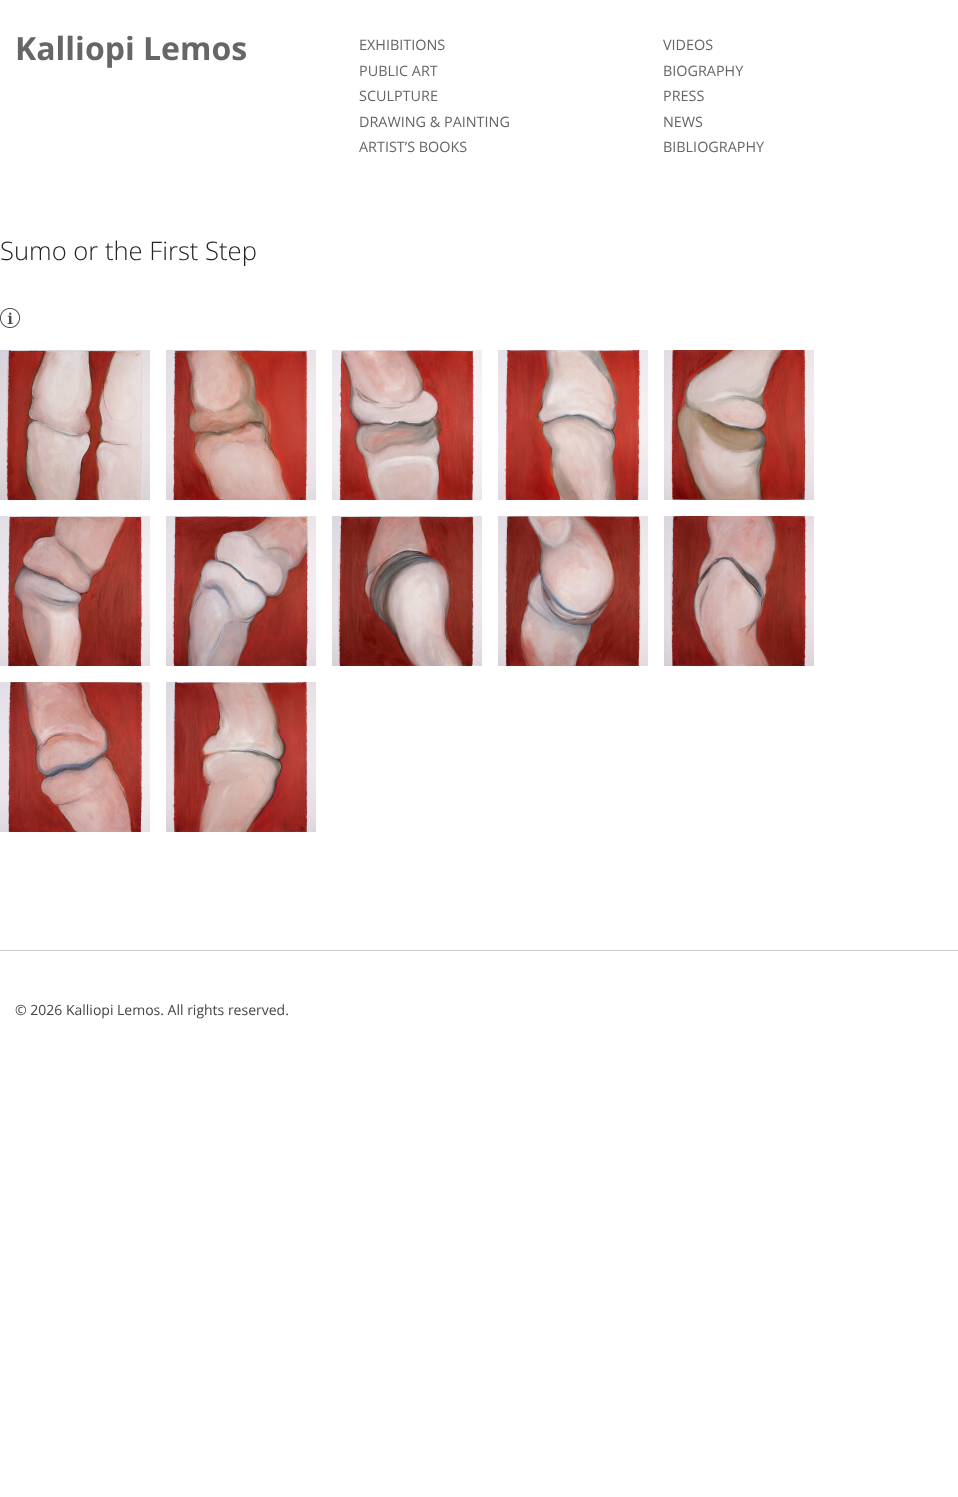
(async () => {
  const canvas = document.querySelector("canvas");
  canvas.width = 958;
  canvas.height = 1497;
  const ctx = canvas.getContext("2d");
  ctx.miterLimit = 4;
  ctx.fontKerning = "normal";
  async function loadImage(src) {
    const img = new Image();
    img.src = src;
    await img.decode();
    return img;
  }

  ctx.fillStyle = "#ffffff";
  ctx.fillRect(0, 0, 958, 1497);
  ctx.drawImage(await loadImage("img/1.png"), 0, 308, 20, 20);
  ctx.drawImage(await loadImage("img/2.png"), 0, 350, 150, 150);
  ctx.drawImage(await loadImage("img/3.png"), 166, 350, 150, 150);
  ctx.drawImage(await loadImage("img/4.png"), 332, 350, 150, 150);
  ctx.drawImage(await loadImage("img/5.png"), 498, 350, 150, 150);
  ctx.drawImage(await loadImage("img/6.png"), 664, 350, 150, 150);
  ctx.drawImage(await loadImage("img/7.png"), 0, 516, 150, 150);
  ctx.drawImage(await loadImage("img/8.png"), 166, 516, 150, 150);
  ctx.drawImage(await loadImage("img/9.png"), 332, 516, 150, 150);
  ctx.drawImage(await loadImage("img/10.png"), 498, 516, 150, 150);
  ctx.drawImage(await loadImage("img/11.png"), 664, 516, 150, 150);
  ctx.drawImage(await loadImage("img/12.png"), 0, 682, 150, 150);
  ctx.drawImage(await loadImage("img/13.png"), 166, 682, 150, 150);
  ctx.fillStyle = "#cccccc";
  ctx.fillRect(0, 950, 958, 1);
  ctx.font = "bold 32px Open Sans";
  ctx.fillStyle = "#666666";
  ctx.fillText("Kalliopi Lemos", 15, 60);
  ctx.font = "14.4px Open Sans";
  for (const [text, x, y] of [
    ["EXHIBITIONS", 359, 50],
    ["VIDEOS", 663, 50],
    ["PUBLIC ART", 359, 76],
    ["BIOGRAPHY", 663, 76],
    ["SCULPTURE", 359, 101],
    ["PRESS", 663, 101],
    ["DRAWING & PAINTING", 359, 127],
    ["NEWS", 663, 127],
    ["ARTIST’S BOOKS", 359, 152],
    ["BIBLIOGRAPHY", 663, 152],
  ]) {
    ctx.fillText(text, x, y);
  }
  ctx.font = "300 25.6px Open Sans";
  ctx.fillStyle = "#222222";
  ctx.fillText("Sumo or the First Step", 0, 260);
  ctx.font = "14px Open Sans";
  ctx.fillStyle = "#444444";
  ctx.fillText("© 2026 Kalliopi Lemos. All rights reserved.", 15, 1015);
})();
